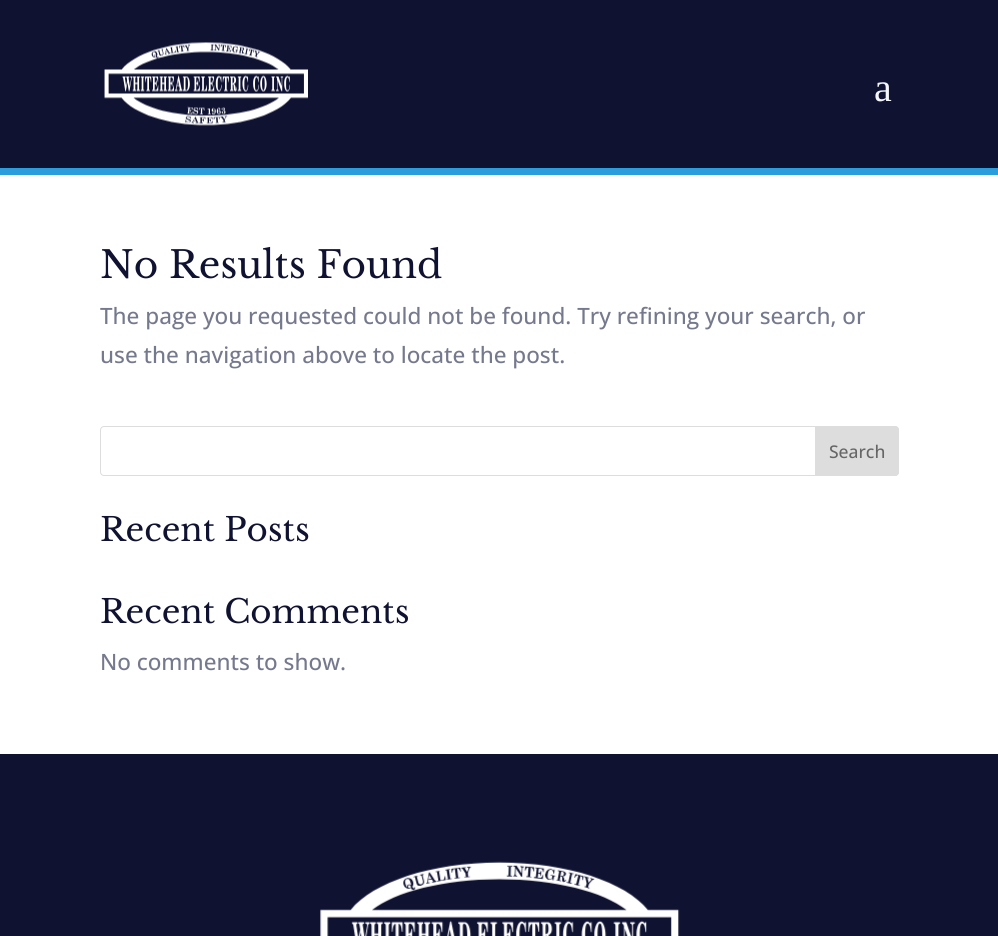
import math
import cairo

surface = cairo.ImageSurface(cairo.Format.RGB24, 998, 936)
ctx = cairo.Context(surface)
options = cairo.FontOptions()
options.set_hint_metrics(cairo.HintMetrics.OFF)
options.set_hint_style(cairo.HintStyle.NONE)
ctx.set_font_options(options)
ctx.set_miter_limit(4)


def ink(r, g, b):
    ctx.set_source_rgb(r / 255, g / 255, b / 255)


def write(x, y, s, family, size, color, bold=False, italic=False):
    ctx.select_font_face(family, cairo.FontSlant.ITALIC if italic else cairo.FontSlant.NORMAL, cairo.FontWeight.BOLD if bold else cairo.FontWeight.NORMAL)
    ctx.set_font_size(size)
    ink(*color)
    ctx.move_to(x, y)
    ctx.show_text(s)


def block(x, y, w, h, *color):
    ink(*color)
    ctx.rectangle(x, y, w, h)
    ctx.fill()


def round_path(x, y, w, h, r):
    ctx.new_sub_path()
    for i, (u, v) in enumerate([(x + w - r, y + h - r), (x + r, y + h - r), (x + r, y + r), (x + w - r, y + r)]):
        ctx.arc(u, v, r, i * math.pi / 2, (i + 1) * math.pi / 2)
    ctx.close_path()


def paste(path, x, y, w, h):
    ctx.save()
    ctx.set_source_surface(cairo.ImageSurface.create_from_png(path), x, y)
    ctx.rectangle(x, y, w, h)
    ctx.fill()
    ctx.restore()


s1 = dict(family="Liberation Serif", size=40, color=(244, 246, 252))
s2 = dict(family="Libre Baskerville", size=37.5, color=(15, 19, 49))
s3 = dict(family="Open Sans Medium", size=22.5, color=(117, 121, 141))
s4 = dict(family="Open Sans Medium", size=17.5, color=(102, 102, 102))
s5 = dict(family="Libre Baskerville", size=32.5, color=(15, 19, 49))

ink(255, 255, 255)
ctx.paint()
block(0, 0, 998, 168, 15, 19, 49)
block(0, 168, 998, 7, 43, 156, 220)
paste("pic1.png", 104, 42, 204, 84)
write(874, 101, "a", **s1)
write(100, 278, "No Results Found", **s2)
write(100, 324, "The page you requested could not be found. Try refining your search, or", **s3)
write(100, 363, "use the navigation above to locate the post.", **s3)
round_path(100.5, 426.5, 798, 49, 3.5)
ink(221, 221, 221)
ctx.set_line_width(1)
ctx.stroke()
ctx.new_path()
ctx.move_to(815.5, 426.5)
ctx.line_to(895, 426.5)
ctx.curve_to(897, 426.5, 898.5, 428, 898.5, 430)
ctx.line_to(898.5, 472)
ctx.curve_to(898.5, 474, 897, 475.5, 895, 475.5)
ctx.line_to(815.5, 475.5)
ctx.close_path()
ctx.fill_preserve()
ctx.stroke()
write(829, 458, "Search", **s4)
write(100, 541, "Recent Posts", **s5)
write(100, 623, "Recent Comments", **s5)
write(100, 670, "No comments to show.", **s3)
block(0, 754, 998, 182, 15, 19, 49)
paste("pic2.png", 320, 861, 360, 75)
surface.write_to_png("screenshot.png")
